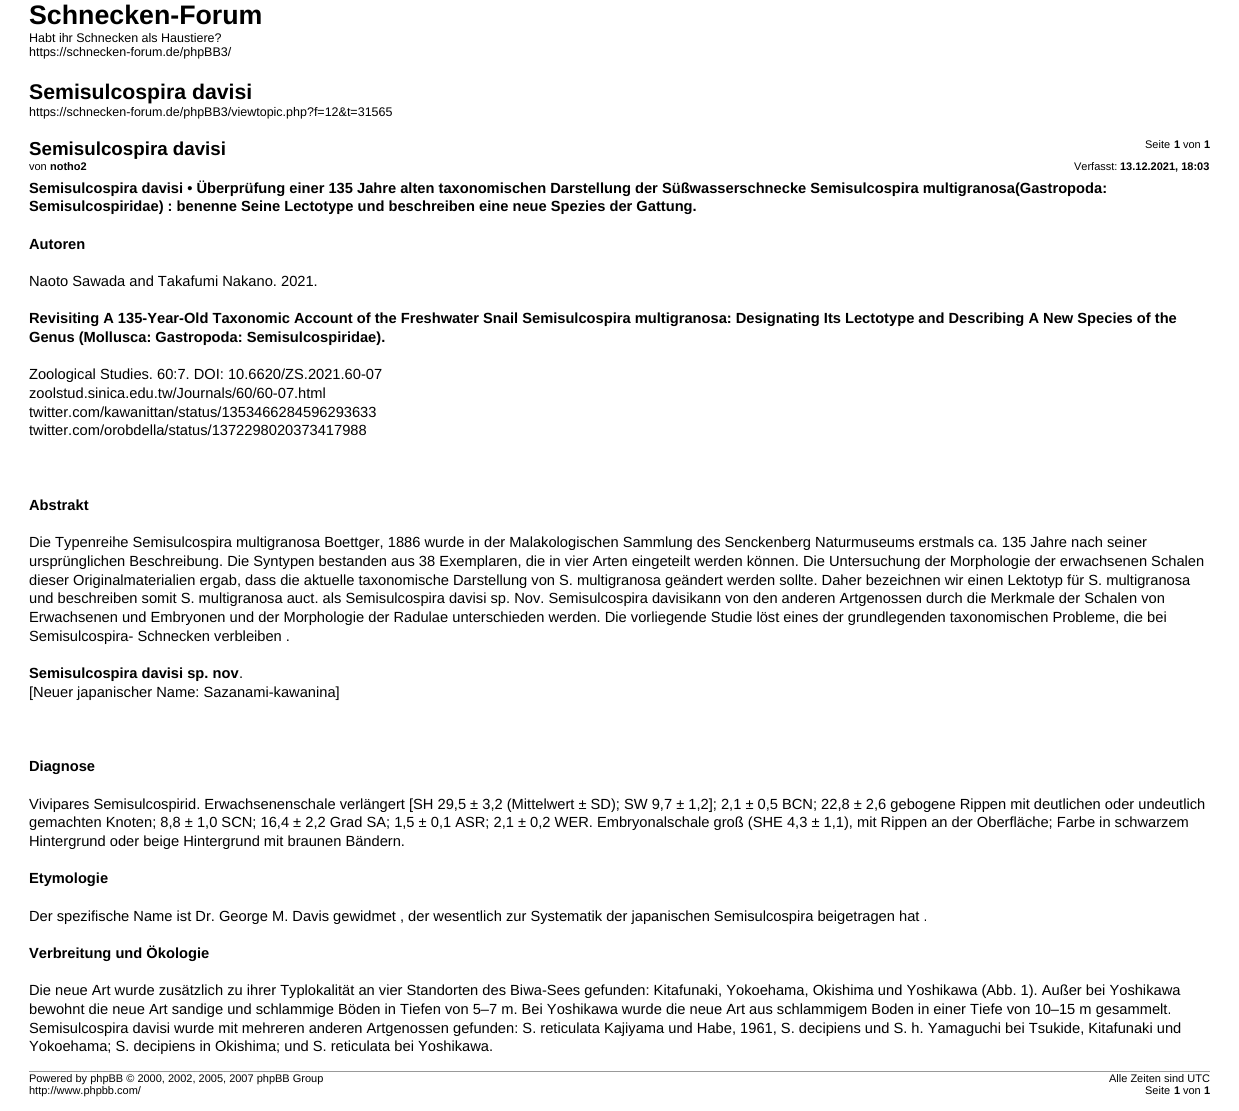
import math
import cairo

surface = cairo.ImageSurface(cairo.Format.RGB24, 1239, 1111)
ctx = cairo.Context(surface)
options = cairo.FontOptions()
options.set_hint_metrics(cairo.HintMetrics.OFF)
options.set_hint_style(cairo.HintStyle.NONE)
ctx.set_font_options(options)
ctx.set_miter_limit(4)


def ink(r, g, b):
    ctx.set_source_rgb(r / 255, g / 255, b / 255)


def write(x, y, s, family, size, color, bold=False, italic=False):
    ctx.select_font_face(family, cairo.FontSlant.ITALIC if italic else cairo.FontSlant.NORMAL, cairo.FontWeight.BOLD if bold else cairo.FontWeight.NORMAL)
    ctx.set_font_size(size)
    ink(*color)
    ctx.move_to(x, y)
    ctx.show_text(s)


def block(x, y, w, h, *color):
    ink(*color)
    ctx.rectangle(x, y, w, h)
    ctx.fill()


s1 = dict(family="Liberation Sans", size=26.75, color=(0, 0, 0), bold=True)
s2 = dict(family="Liberation Sans", size=12.5, color=(0, 0, 0))
s3 = dict(family="Liberation Sans", size=21.25, color=(0, 0, 0), bold=True)
s4 = dict(family="Liberation Sans", size=11, color=(0, 0, 0))
s5 = dict(family="Liberation Sans", size=11, color=(0, 0, 0), bold=True)
s6 = dict(family="Liberation Sans", size=18.75, color=(0, 0, 0), bold=True)
s7 = dict(family="Liberation Sans", size=14.67, color=(0, 0, 0), bold=True)
s8 = dict(family="Liberation Sans", size=14.67, color=(0, 0, 0))

ink(255, 255, 255)
ctx.paint()
write(29, 24, "Schnecken-Forum", **s1)
write(29, 42, "Habt ihr Schnecken als Haustiere?", **s2)
write(29, 56, "https://schnecken-forum.de/phpBB3/", **s2)
write(29, 99, "Semisulcospira davisi", **s3)
write(29, 116, "https://schnecken-forum.de/phpBB3/viewtopic.php?f=12&t=31565", **s2)
write(1145, 148, "Seite", **s4)
write(1174, 148, "1", **s5)
write(1183, 148, "von", **s4)
write(1204, 148, "1", **s5)
write(29, 155, "Semisulcospira davisi", **s6)
write(29, 170, "von", **s4)
write(50, 170, "notho2", **s5)
write(1074, 170, "Verfasst:", **s4)
write(1120, 170, "13.12.2021, 18:03", **s5)
write(29, 193, "Semisulcospira davisi • Überprüfung einer 135 Jahre alten taxonomischen Darstellung der Süßwasserschnecke Semisulcospira multigranosa(Gastropoda:", **s7)
write(29, 211, "Semisulcospiridae) : benenne Seine Lectotype und beschreiben eine neue Spezies der Gattung.", **s7)
write(29, 249, "Autoren", **s7)
write(29, 286, "Naoto Sawada and Takafumi Nakano. 2021.", **s8)
write(29, 323, "Revisiting A 135-Year-Old Taxonomic Account of the Freshwater Snail Semisulcospira multigranosa: Designating Its Lectotype and Describing A New Species of the", **s7)
write(29, 342, "Genus (Mollusca: Gastropoda: Semisulcospiridae).", **s7)
write(29, 379, "Zoological Studies. 60:7. DOI: 10.6620/ZS.2021.60-07", **s8)
write(29, 398, "zoolstud.sinica.edu.tw/Journals/60/60-07.html", **s8)
write(29, 417, "twitter.com/kawanittan/status/1353466284596293633", **s8)
write(29, 435, "twitter.com/orobdella/status/1372298020373417988", **s8)
write(29, 510, "Abstrakt", **s7)
write(29, 547, "Die Typenreihe Semisulcospira multigranosa Boettger, 1886 wurde in der Malakologischen Sammlung des Senckenberg Naturmuseums erstmals ca. 135 Jahre nach seiner", **s8)
write(29, 566, "ursprünglichen Beschreibung. Die Syntypen bestanden aus 38 Exemplaren, die in vier Arten eingeteilt werden können. Die Untersuchung der Morphologie der erwachsenen Schalen", **s8)
write(29, 585, "dieser Originalmaterialien ergab, dass die aktuelle taxonomische Darstellung von S. multigranosa geändert werden sollte. Daher bezeichnen wir einen Lektotyp für S. multigranosa", **s8)
write(29, 603, "und beschreiben somit S. multigranosa auct. als Semisulcospira davisi sp. Nov. Semisulcospira davisikann von den anderen Artgenossen durch die Merkmale der Schalen von", **s8)
write(29, 622, "Erwachsenen und Embryonen und der Morphologie der Radulae unterschieden werden. Die vorliegende Studie löst eines der grundlegenden taxonomischen Probleme, die bei", **s8)
write(29, 641, "Semisulcospira- Schnecken verbleiben .", **s8)
write(29, 678, "Semisulcospira davisi sp. nov", **s7)
write(239, 678, ".", **s8)
write(29, 697, "[Neuer japanischer Name: Sazanami-kawanina]", **s8)
write(29, 771, "Diagnose", **s7)
write(29, 809, "Vivipares Semisulcospirid. Erwachsenenschale verlängert [SH 29,5 ± 3,2 (Mittelwert ± SD); SW 9,7 ± 1,2]; 2,1 ± 0,5 BCN; 22,8 ± 2,6 gebogene Rippen mit deutlichen oder undeutlich", **s8)
write(29, 827, "gemachten Knoten; 8,8 ± 1,0 SCN; 16,4 ± 2,2 Grad SA; 1,5 ± 0,1 ASR; 2,1 ± 0,2 WER. Embryonalschale groß (SHE 4,3 ± 1,1), mit Rippen an der Oberfläche; Farbe in schwarzem", **s8)
write(29, 846, "Hintergrund oder beige Hintergrund mit braunen Bändern.", **s8)
write(29, 883, "Etymologie", **s7)
write(29, 921, "Der spezifische Name ist Dr. George M. Davis gewidmet , der wesentlich zur Systematik der japanischen Semisulcospira beigetragen hat .", **s8)
write(29, 958, "Verbreitung und Ökologie", **s7)
write(29, 995, "Die neue Art wurde zusätzlich zu ihrer Typlokalität an vier Standorten des Biwa-Sees gefunden: Kitafunaki, Yokoehama, Okishima und Yoshikawa (Abb. 1). Außer bei Yoshikawa", **s8)
write(29, 1014, "bewohnt die neue Art sandige und schlammige Böden in Tiefen von 5–7 m. Bei Yoshikawa wurde die neue Art aus schlammigem Boden in einer Tiefe von 10–15 m gesammelt.", **s8)
write(29, 1033, "Semisulcospira davisi wurde mit mehreren anderen Artgenossen gefunden: S. reticulata Kajiyama und Habe, 1961, S. decipiens und S. h. Yamaguchi bei Tsukide, Kitafunaki und", **s8)
write(29, 1051, "Yokoehama; S. decipiens in Okishima; und S. reticulata bei Yoshikawa.", **s8)
block(29, 1071, 1181, 1, 153, 153, 153)
write(29, 1082, "Powered by phpBB © 2000, 2002, 2005, 2007 phpBB Group", **s4)
write(29, 1094, "http://www.phpbb.com/", **s4)
write(1109, 1082, "Alle Zeiten sind UTC", **s4)
write(1145, 1094, "Seite", **s4)
write(1174, 1094, "1", **s5)
write(1183, 1094, "von", **s4)
write(1204, 1094, "1", **s5)
surface.write_to_png("screenshot.png")
